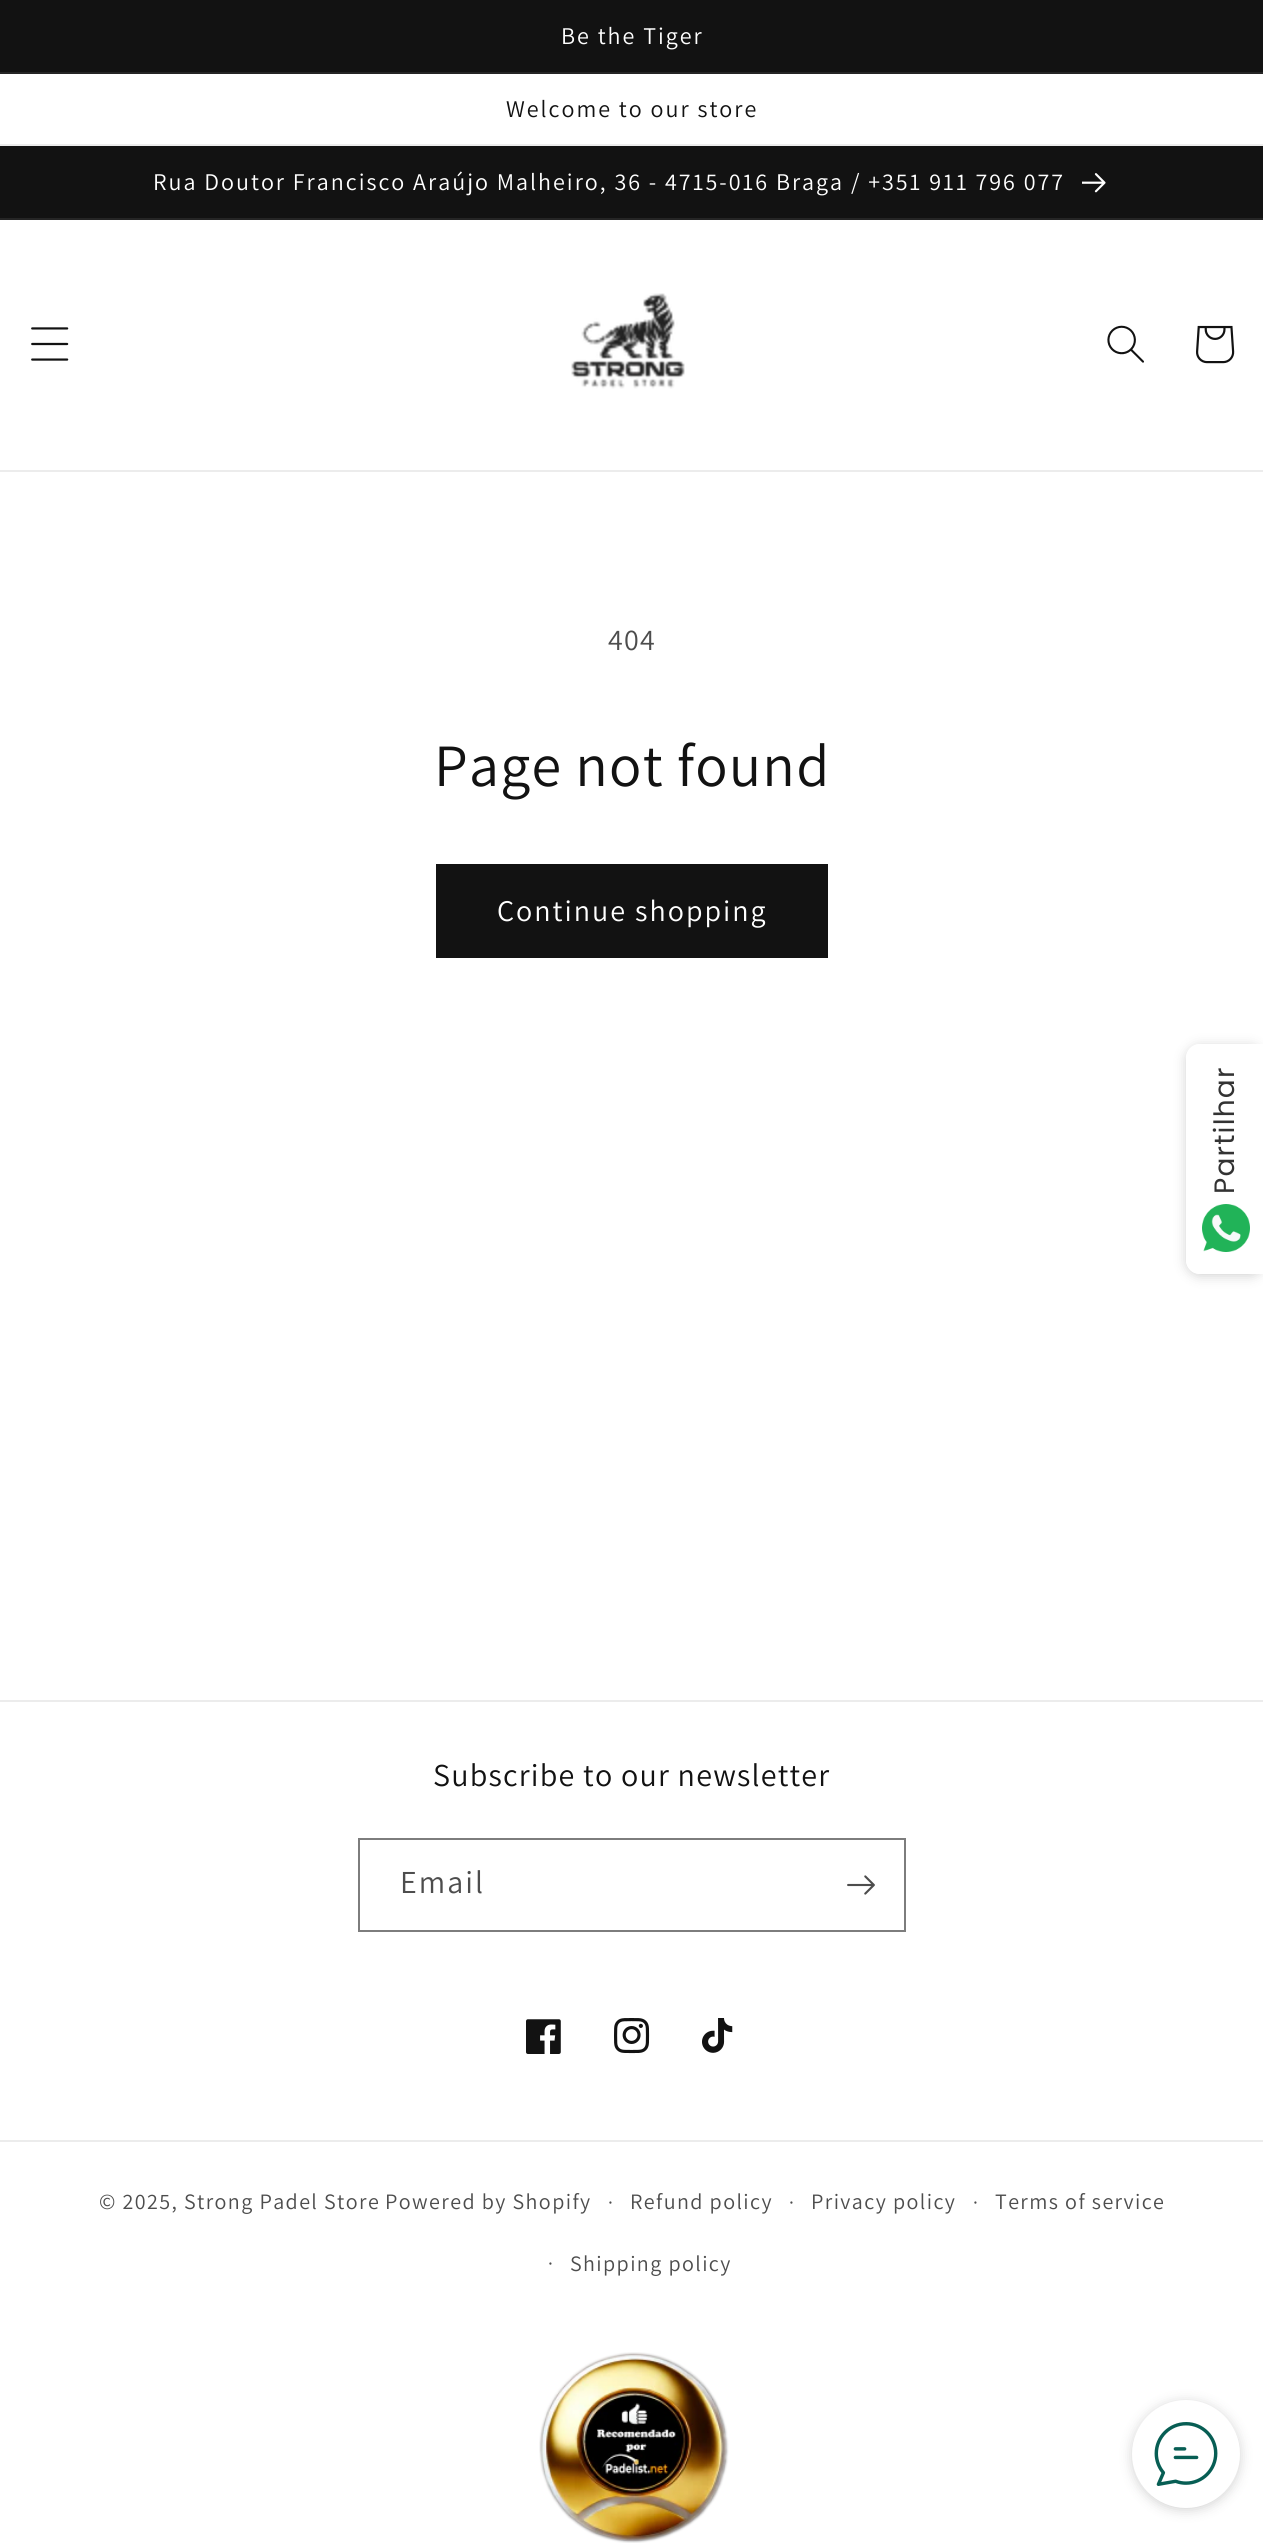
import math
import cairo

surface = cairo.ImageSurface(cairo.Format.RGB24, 1263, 2547)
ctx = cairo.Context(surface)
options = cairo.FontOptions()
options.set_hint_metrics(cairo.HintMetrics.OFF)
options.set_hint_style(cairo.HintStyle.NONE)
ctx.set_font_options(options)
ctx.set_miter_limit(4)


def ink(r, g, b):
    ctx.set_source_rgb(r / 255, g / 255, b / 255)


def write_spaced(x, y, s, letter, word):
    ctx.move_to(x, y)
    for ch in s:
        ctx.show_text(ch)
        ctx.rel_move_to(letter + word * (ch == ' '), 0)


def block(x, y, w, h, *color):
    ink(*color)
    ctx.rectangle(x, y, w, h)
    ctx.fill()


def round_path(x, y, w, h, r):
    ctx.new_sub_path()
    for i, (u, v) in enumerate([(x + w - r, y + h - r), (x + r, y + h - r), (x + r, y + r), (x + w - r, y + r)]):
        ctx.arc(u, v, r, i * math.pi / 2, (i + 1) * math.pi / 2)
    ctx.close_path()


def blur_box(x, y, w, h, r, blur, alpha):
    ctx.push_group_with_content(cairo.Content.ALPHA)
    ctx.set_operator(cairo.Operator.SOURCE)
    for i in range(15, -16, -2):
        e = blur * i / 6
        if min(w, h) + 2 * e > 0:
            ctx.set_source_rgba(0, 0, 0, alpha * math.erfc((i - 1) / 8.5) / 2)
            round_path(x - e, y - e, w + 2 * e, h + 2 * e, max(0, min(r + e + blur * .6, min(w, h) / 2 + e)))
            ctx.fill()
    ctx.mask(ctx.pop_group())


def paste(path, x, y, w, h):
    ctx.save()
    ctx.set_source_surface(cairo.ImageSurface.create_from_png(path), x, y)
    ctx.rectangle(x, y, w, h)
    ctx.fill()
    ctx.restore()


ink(255, 255, 255)
ctx.paint()
block(0, 0, 1263, 72, 18, 18, 18)
block(0, 72, 1263, 2, 37, 37, 37)
ctx.select_font_face("Assistant")
ctx.set_font_size(24)
ink(255, 255, 255)
write_spaced(561, 44, "Be the Tiger", 2, 0)
block(0, 144, 1263, 2, 236, 236, 236)
ink(18, 18, 18)
write_spaced(506, 117, "Welcome to our store", 2, 0)
block(0, 146, 1263, 72, 18, 18, 18)
block(0, 218, 1263, 2, 37, 37, 37)
ink(255, 255, 255)
write_spaced(153, 190, "Rua Doutor Francisco Araújo Malheiro, 36 - 4715-016 Braga / +351 911 796 077", 2, 0)
paste("pic1.png", 1082, 173, 24, 20)
block(0, 470, 1263, 2, 236, 236, 236)
paste("pic2.png", 31, 327, 38, 34)
paste("pic3.png", 571, 293, 114, 96)
paste("pic4.png", 1107, 325, 37, 38)
paste("pic5.png", 1196, 325, 39, 39)
ctx.set_font_size(30)
ink(77, 77, 77)
write_spaced(608, 650, "404", 1.2, 0)
ctx.set_font_size(60)
ink(18, 18, 18)
write_spaced(434, 786, "Page not found", 1.2, 0)
block(436, 864, 392, 94, 18, 18, 18)
ctx.set_font_size(30)
ink(255, 255, 255)
write_spaced(497, 921, "Continue shopping", 2, 0)
ink(27, 27, 27)
blur_box(1186, 1046, 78, 230, 14, 6, 0.2)
ink(255, 255, 255)
ctx.new_path()
ctx.move_to(1200, 1044)
ctx.line_to(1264, 1044)
ctx.line_to(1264, 1274)
ctx.line_to(1200, 1274)
ctx.curve_to(1192.5, 1274, 1186, 1267.5, 1186, 1260)
ctx.line_to(1186, 1058)
ctx.curve_to(1186, 1050.5, 1192.5, 1044, 1200, 1044)
ctx.close_path()
ctx.fill()
ctx.set_fill_rule(cairo.FillRule.EVEN_ODD)
ctx.new_path()
ctx.move_to(1200, 1044)
ctx.line_to(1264, 1044)
ctx.line_to(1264, 1274)
ctx.line_to(1200, 1274)
ctx.curve_to(1192, 1274, 1186, 1268, 1186, 1260)
ctx.line_to(1186, 1058)
ctx.curve_to(1186, 1050, 1192, 1044, 1200, 1044)
ctx.close_path()
ctx.move_to(1200, 1046)
ctx.line_to(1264, 1046)
ctx.line_to(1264, 1272)
ctx.line_to(1200, 1272)
ctx.curve_to(1193, 1272, 1188, 1267, 1188, 1260)
ctx.line_to(1188, 1058)
ctx.curve_to(1188, 1051, 1193, 1046, 1200, 1046)
ctx.close_path()
ctx.fill()
ctx.select_font_face("Poppins")
ctx.set_font_size(28)
ink(51, 51, 51)
ctx.save()
ctx.translate(1234, 1194)
ctx.rotate(-90 * math.pi / 180)
write_spaced(0, 0, "Partilhar", 1.2, 0)
ctx.restore()
paste("pic6.png", 1202, 1204, 48, 48)
ink(27, 27, 27)
blur_box(1132, 2402, 108, 108, 54, 6, 0.2)
ink(255, 255, 255)
ctx.arc(1186, 2454, 53, 0, 2 * math.pi)
ctx.fill_preserve()
ctx.stroke()
paste("pic7.png", 1154, 2422, 64, 64)
block(0, 1700, 1263, 2, 236, 236, 236)
ctx.select_font_face("Assistant")
ctx.set_font_size(32)
ink(18, 18, 18)
write_spaced(433, 1786, "Subscribe to our newsletter", 1.2, 0)
ctx.rectangle(359, 1839, 546, 92)
ink(125, 125, 125)
ctx.stroke()
ink(77, 77, 77)
write_spaced(400, 1893, "Email", 2, 0)
paste("pic8.png", 847, 1875, 28, 20)
paste("pic9.png", 526, 2019, 35, 35)
paste("pic10.png", 614, 2018, 36, 36)
paste("pic11.png", 702, 2018, 31, 35)
block(0, 2140, 1263, 2, 236, 236, 236)
ctx.set_font_size(22)
ink(77, 77, 77)
write_spaced(99, 2209, "© 2025, Strong Padel Store", 1.4, 0)
write_spaced(385, 2209, "Powered by Shopify", 1.4, 0)
ctx.set_font_size(20)
write_spaced(608, 2209, "·", 1.4, 0)
ctx.set_font_size(22)
write_spaced(630, 2209, "Refund policy", 1.4, 0)
ctx.set_font_size(20)
write_spaced(789, 2209, "·", 1.4, 0)
ctx.set_font_size(22)
write_spaced(811, 2209, "Privacy policy", 1.4, 0)
ctx.set_font_size(20)
write_spaced(973, 2209, "·", 1.4, 0)
ctx.set_font_size(22)
write_spaced(995, 2209, "Terms of service", 1.4, 0)
ctx.set_font_size(20)
write_spaced(548, 2270, "·", 1.4, 0)
ctx.set_font_size(22)
write_spaced(570, 2271, "Shipping policy", 1.4, 0)
paste("pic12.png", 539, 2352, 190, 191)
surface.write_to_png("screenshot.png")
